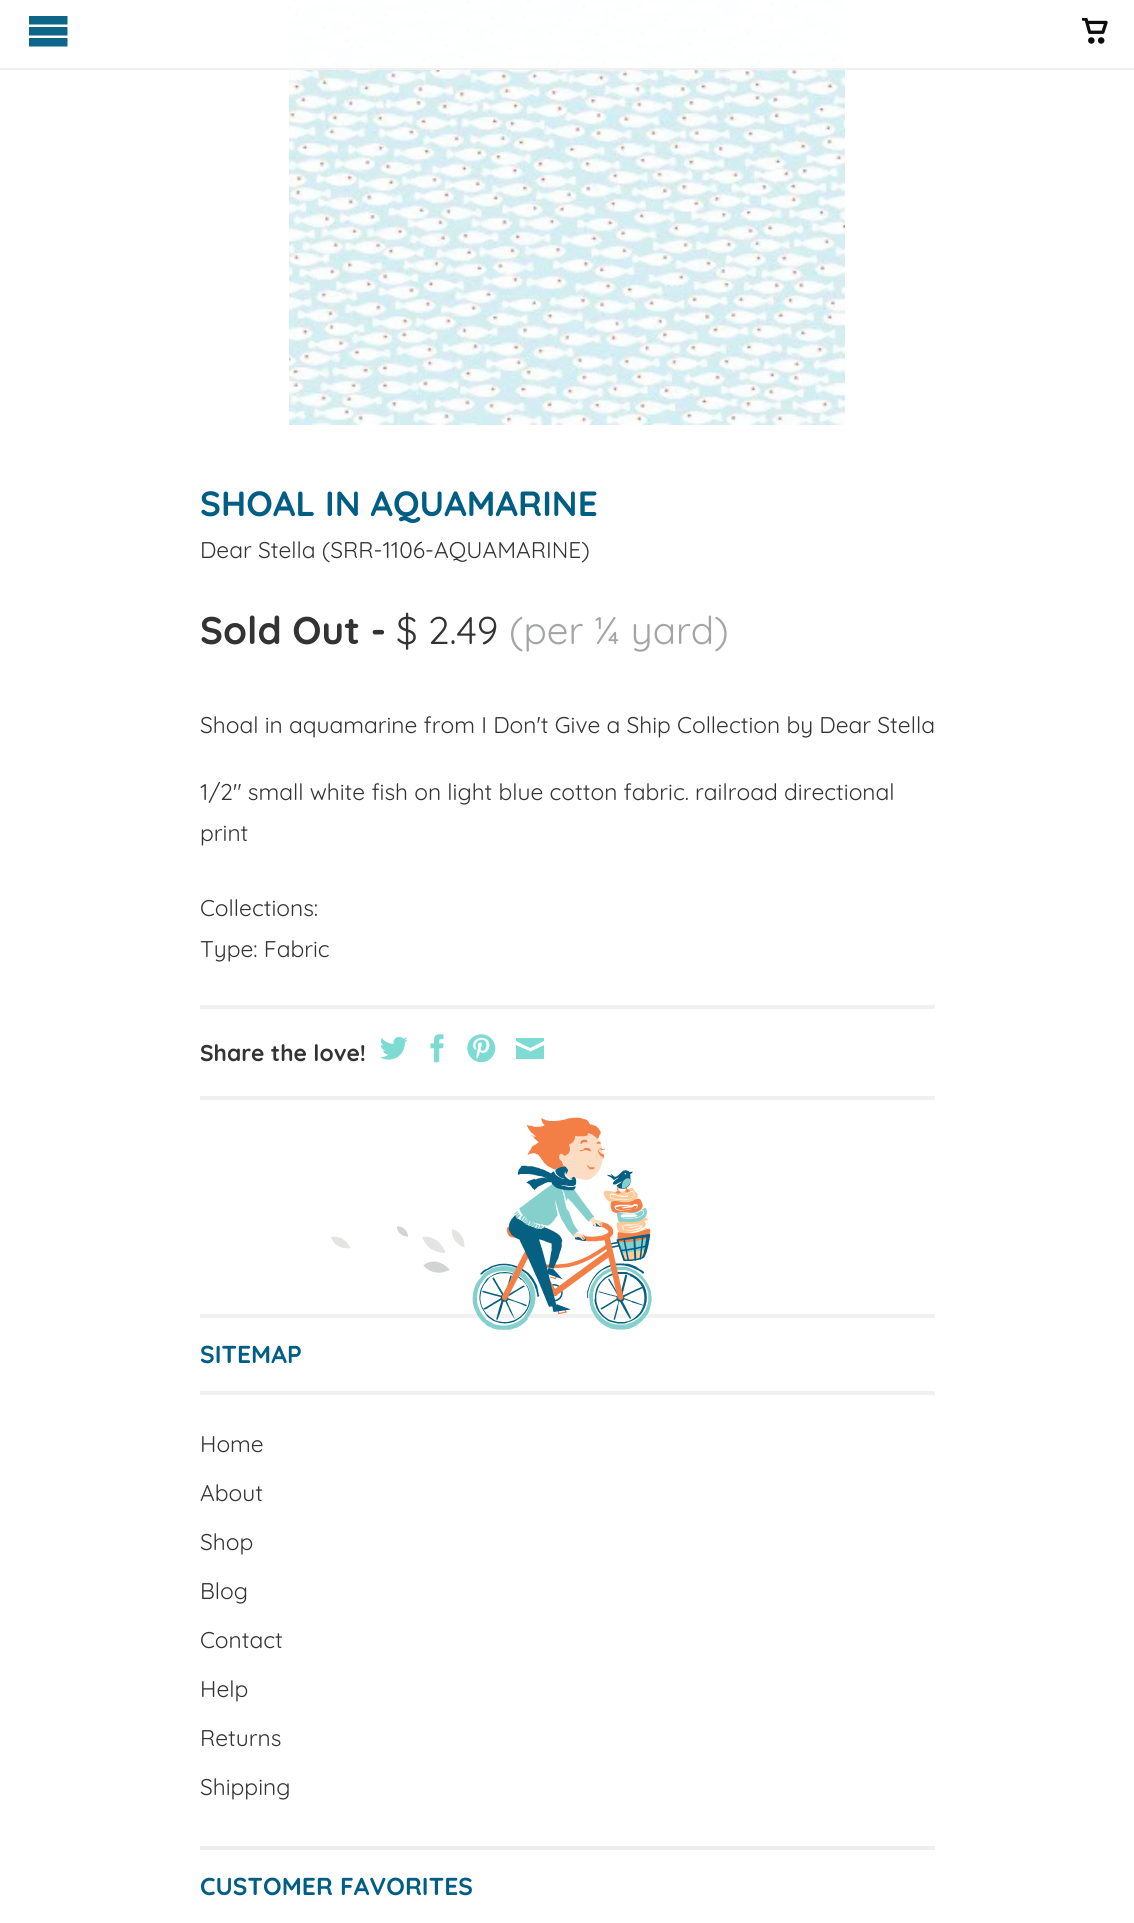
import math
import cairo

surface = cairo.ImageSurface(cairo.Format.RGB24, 1134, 1923)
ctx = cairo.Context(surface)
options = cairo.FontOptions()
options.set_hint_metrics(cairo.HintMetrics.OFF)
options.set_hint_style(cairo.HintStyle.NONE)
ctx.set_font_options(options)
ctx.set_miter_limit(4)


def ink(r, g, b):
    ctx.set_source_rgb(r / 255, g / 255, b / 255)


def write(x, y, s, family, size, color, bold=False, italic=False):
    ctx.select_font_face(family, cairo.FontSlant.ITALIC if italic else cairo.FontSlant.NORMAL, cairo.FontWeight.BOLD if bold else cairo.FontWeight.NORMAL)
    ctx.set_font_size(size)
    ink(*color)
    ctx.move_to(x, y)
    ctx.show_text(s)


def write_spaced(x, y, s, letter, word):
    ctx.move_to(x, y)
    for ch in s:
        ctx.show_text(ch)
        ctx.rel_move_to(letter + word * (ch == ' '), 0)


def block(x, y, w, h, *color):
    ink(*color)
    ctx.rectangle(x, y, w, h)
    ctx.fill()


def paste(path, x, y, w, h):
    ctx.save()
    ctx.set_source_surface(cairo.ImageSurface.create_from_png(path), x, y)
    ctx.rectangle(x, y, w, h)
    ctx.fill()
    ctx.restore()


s1 = dict(family="Quicksand", size=22.75, color=(51, 51, 51))
s2 = dict(family="Quicksand", size=38.5, color=(51, 51, 51), bold=True)
s3 = dict(family="Quicksand", size=38.5, color=(51, 51, 51))
s4 = dict(family="Quicksand", size=38.5, color=(163, 164, 164))
s5 = dict(family="Quicksand", size=22.75, color=(51, 51, 51), bold=True)

ink(255, 255, 255)
ctx.paint()
paste("pic2.png", 289, 0, 556, 425)
ctx.set_source_rgba(1, 1, 1, 0.95)
ctx.rectangle(289, 0, 556, 70)
ctx.fill()
ctx.set_source_rgba(0.941, 0.941, 0.941, 0.95)
ctx.rectangle(0, 68, 1134, 2)
ctx.fill()
ink(13, 101, 137)
ctx.new_path()
ctx.move_to(29, 16)
ctx.line_to(29, 24.5)
ctx.line_to(67.5, 24.5)
ctx.line_to(67.5, 16)
ctx.close_path()
ctx.move_to(29, 27)
ctx.line_to(29, 35.5)
ctx.line_to(67.5, 35.5)
ctx.line_to(67.5, 27)
ctx.close_path()
ctx.move_to(29, 38)
ctx.line_to(29, 46.5)
ctx.line_to(67.5, 46.5)
ctx.line_to(67.5, 38)
ctx.close_path()
ctx.fill()
paste("pic1.png", 1082, 18, 26, 26)
ctx.select_font_face("Quicksand", cairo.FontSlant.NORMAL, cairo.FontWeight.BOLD)
ctx.set_font_size(35)
ink(0, 93, 131)
write_spaced(200, 516, "SHOAL IN AQUAMARINE", 0.1, 0)
write(200, 558, "Dear Stella (SRR-1106-AQUAMARINE)", **s1)
write(200, 644, "Sold Out -", **s2)
write(396, 644, "$ 2.49", **s3)
write(509, 644, "(per ¼ yard)", **s4)
write(200, 733, "Shoal in aquamarine from I Don't Give a Ship Collection by Dear Stella", **s1)
write(200, 800, "1/2\" small white fish on light blue cotton fabric. railroad directional", **s1)
write(200, 841, "print", **s1)
write(200, 916, "Collections:", **s1)
write(200, 957, "Type: Fabric", **s1)
block(200, 1005, 735, 4, 240, 240, 240)
block(200, 1096, 735, 4, 240, 240, 240)
write(200, 1061, "Share the love!", **s5)
paste("pic3.png", 380, 1036, 28, 24)
paste("pic4.png", 430, 1034, 14, 29)
paste("pic5.png", 467, 1034, 29, 29)
ink(125, 219, 212)
ctx.new_path()
ctx.move_to(530, 1048)
ctx.line_to(516, 1041)
ctx.line_to(516, 1038)
ctx.line_to(544, 1038)
ctx.line_to(544, 1041)
ctx.close_path()
ctx.move_to(530.5, 1051.5)
ctx.line_to(544, 1045)
ctx.line_to(544, 1059)
ctx.line_to(516, 1059)
ctx.line_to(516, 1045)
ctx.close_path()
ctx.fill()
block(200, 1314, 735, 4, 240, 240, 240)
paste("pic6.png", 331, 1117, 321, 213)
block(200, 1391, 735, 4, 240, 240, 240)
ctx.set_font_size(24.5)
ink(0, 93, 131)
write_spaced(200, 1363, "SITEMAP", 0.1, 0)
write(200, 1452, "Home", **s1)
write(200, 1501, "About", **s1)
write(200, 1550, "Shop", **s1)
write(200, 1599, "Blog", **s1)
write(200, 1648, "Contact", **s1)
write(200, 1697, "Help", **s1)
write(200, 1746, "Returns", **s1)
write(200, 1795, "Shipping", **s1)
block(200, 1846, 735, 4, 240, 240, 240)
ctx.select_font_face("Quicksand", cairo.FontSlant.NORMAL, cairo.FontWeight.BOLD)
ctx.set_font_size(24.5)
ink(0, 93, 131)
write_spaced(200, 1895, "CUSTOMER FAVORITES", 0.1, 0)
surface.write_to_png("screenshot.png")
